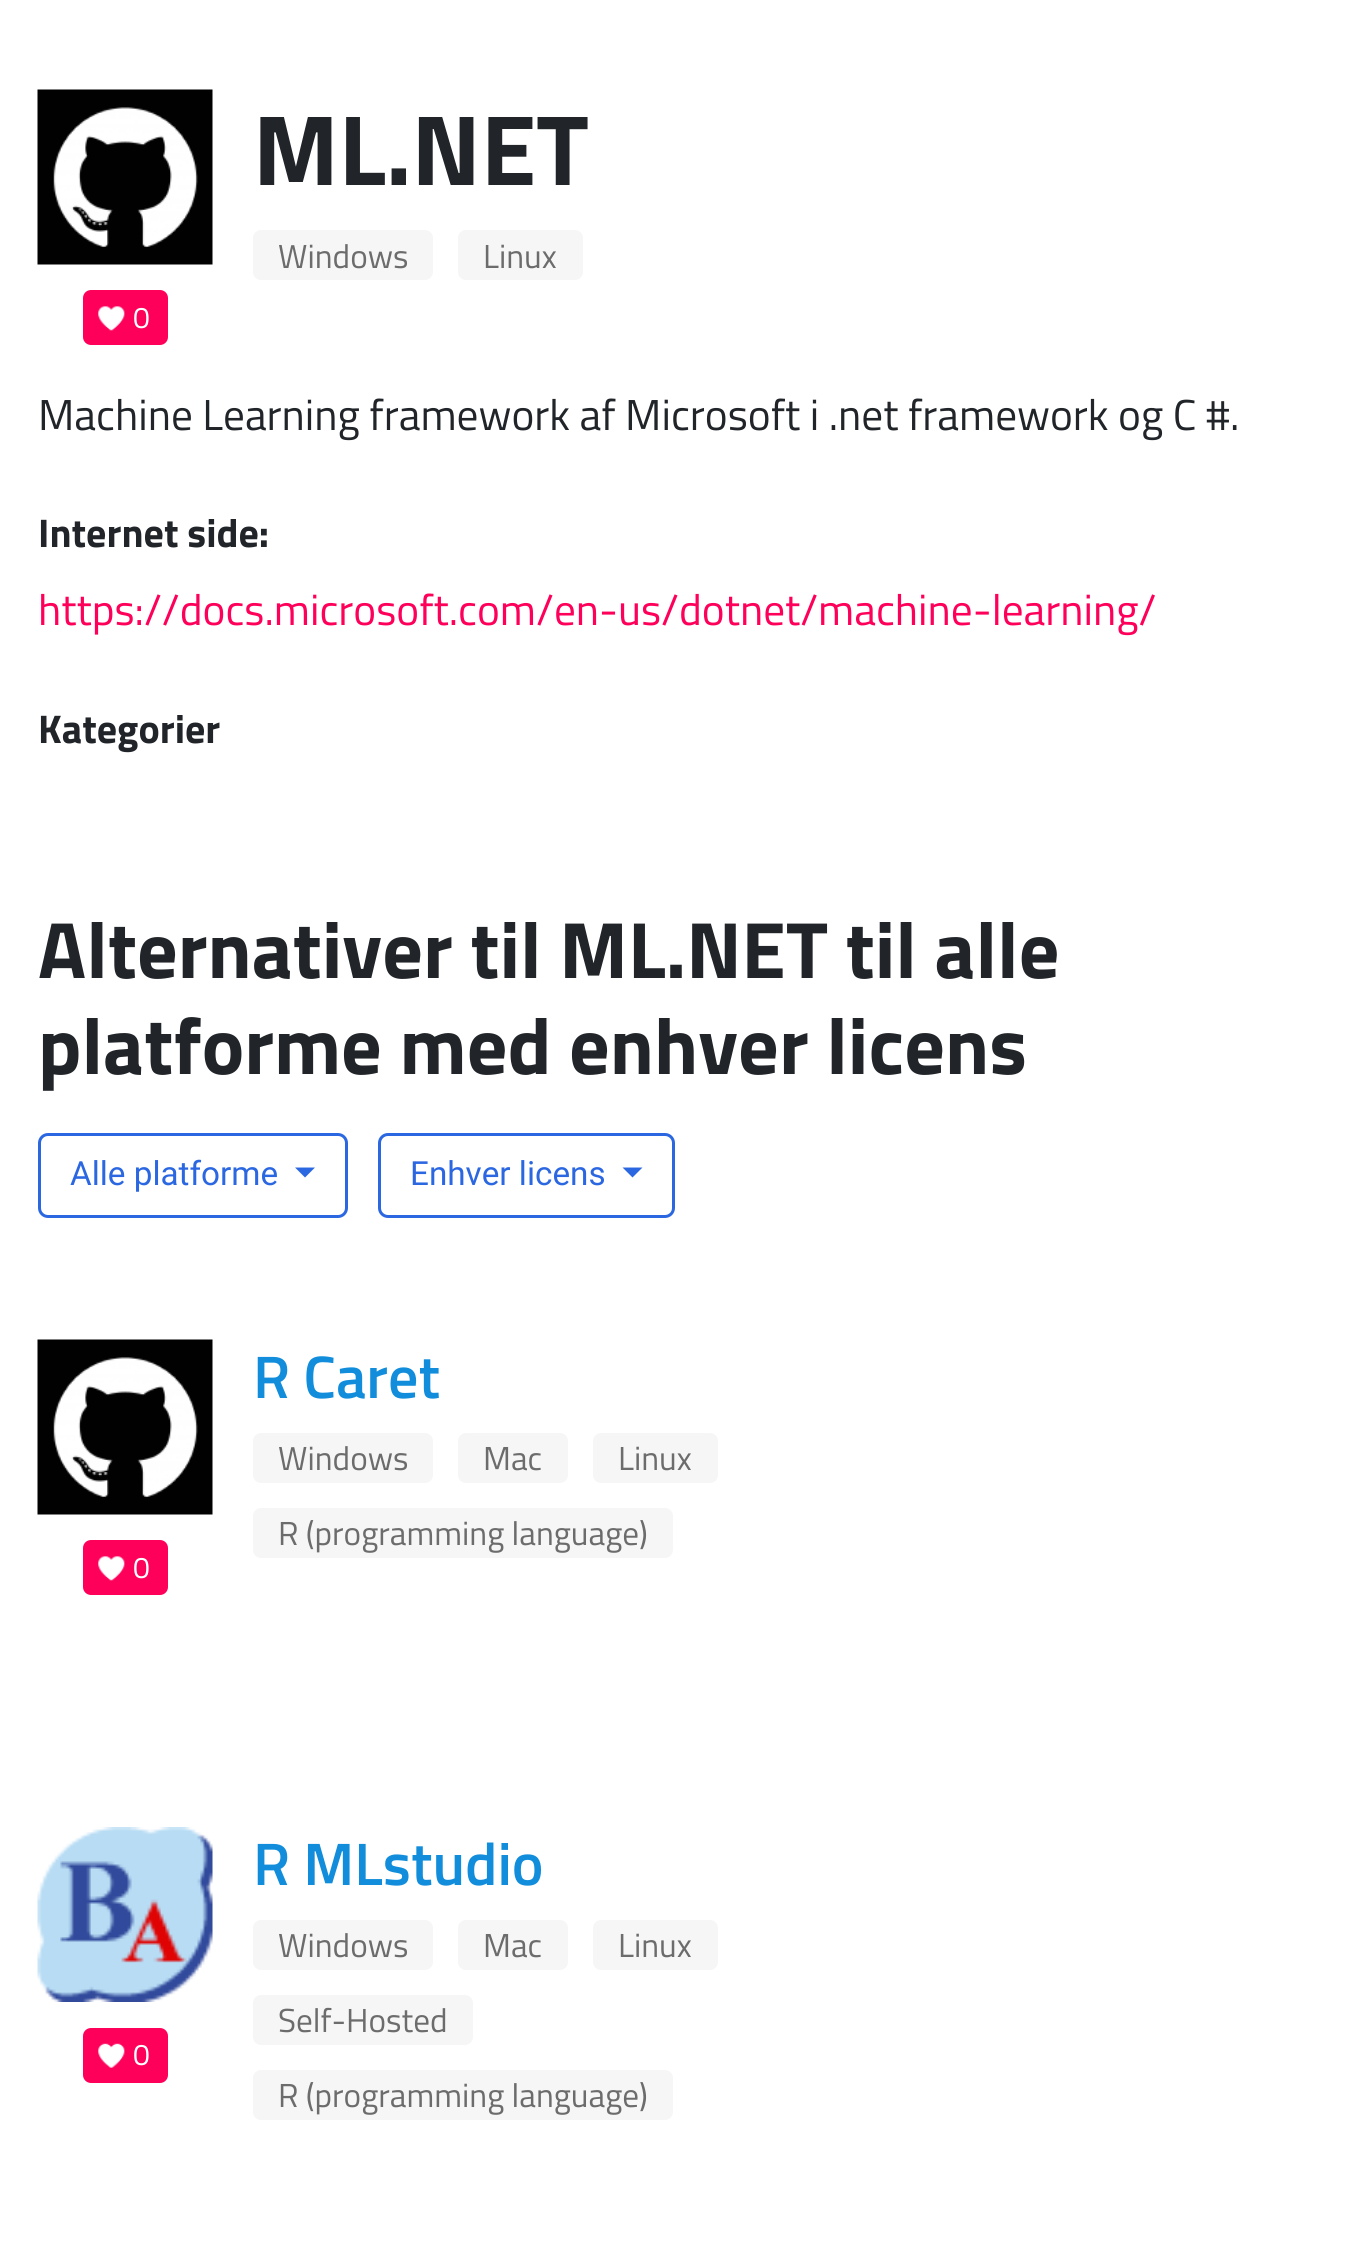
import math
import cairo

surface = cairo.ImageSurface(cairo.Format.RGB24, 1349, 2253)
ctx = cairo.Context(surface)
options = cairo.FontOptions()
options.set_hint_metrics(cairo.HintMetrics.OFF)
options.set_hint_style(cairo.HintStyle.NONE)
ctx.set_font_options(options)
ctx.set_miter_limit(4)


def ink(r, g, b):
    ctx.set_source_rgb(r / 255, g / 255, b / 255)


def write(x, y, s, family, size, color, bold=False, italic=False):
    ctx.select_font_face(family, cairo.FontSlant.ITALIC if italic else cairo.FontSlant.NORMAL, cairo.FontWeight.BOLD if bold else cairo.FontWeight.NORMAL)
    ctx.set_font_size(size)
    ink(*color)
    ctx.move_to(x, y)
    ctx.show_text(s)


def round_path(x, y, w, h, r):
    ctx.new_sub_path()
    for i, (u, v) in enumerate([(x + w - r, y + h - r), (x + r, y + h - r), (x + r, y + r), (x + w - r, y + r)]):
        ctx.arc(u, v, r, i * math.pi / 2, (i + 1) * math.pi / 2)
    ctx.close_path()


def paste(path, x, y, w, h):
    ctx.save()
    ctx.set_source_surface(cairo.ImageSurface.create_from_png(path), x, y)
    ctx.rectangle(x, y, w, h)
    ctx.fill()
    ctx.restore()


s1 = dict(family="Titillium Web", size=100, color=(33, 37, 41), bold=True)
s2 = dict(family="Titillium Web", size=33.25, color=(108, 108, 108))
s3 = dict(family="Titillium Web", size=30, color=(255, 255, 255))
s4 = dict(family="Titillium Web", size=43.3, color=(33, 37, 41))
s5 = dict(family="Titillium Web", size=40, color=(33, 37, 41), bold=True)
s6 = dict(family="Titillium Web", size=43.3, color=(254, 0, 90))
s7 = dict(family="Titillium Web", size=80, color=(33, 37, 41), bold=True)
s8 = dict(family="Roboto", size=33.25, color=(43, 103, 225))
s9 = dict(family="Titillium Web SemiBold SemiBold", size=60, color=(17, 141, 219))

ink(255, 255, 255)
ctx.paint()
write(253, 185, "ML.NET", **s1)
ink(246, 246, 246)
round_path(253, 230, 180, 50, 8)
ctx.fill()
write(278, 268, "Windows", **s2)
ink(246, 246, 246)
round_path(458, 230, 125, 50, 8)
ctx.fill()
write(483, 268, "Linux", **s2)
paste("pic1.png", 37, 89, 176, 176)
ink(254, 0, 90)
round_path(83, 290, 85, 55, 8)
ctx.fill()
paste("pic2.png", 98, 306, 27, 25)
write(133, 328, "0", **s3)
write(38, 430, "Machine Learning framework af Microsoft i .net framework og C #.", **s4)
write(38, 547, "Internet side:", **s5)
write(38, 625, "https://docs.microsoft.com/en-us/dotnet/machine-learning/", **s6)
write(38, 743, "Kategorier", **s5)
write(38, 978, "Alternativer til ML.NET til alle", **s7)
write(38, 1074, "platforme med enhver licens", **s7)
round_path(39.5, 1134.5, 307, 82, 8.5)
ink(43, 103, 225)
ctx.set_line_width(3)
ctx.stroke()
write(70, 1185, "Alle platforme", **s8)
ctx.new_path()
ctx.move_to(295, 1167.5)
ctx.line_to(315, 1167.5)
ctx.line_to(305, 1177.5)
ctx.close_path()
ctx.fill()
round_path(379.5, 1134.5, 294, 82, 8.5)
ctx.stroke()
write(410, 1185, "Enhver licens", **s8)
ctx.new_path()
ctx.move_to(622.5, 1167.5)
ctx.line_to(642.5, 1167.5)
ctx.line_to(632.5, 1177.5)
ctx.close_path()
ctx.fill()
write(253, 1398, "R Caret", **s9)
ink(246, 246, 246)
round_path(253, 1433, 180, 50, 8)
ctx.fill()
write(278, 1470, "Windows", **s2)
ink(246, 246, 246)
round_path(458, 1433, 110, 50, 8)
ctx.fill()
write(483, 1470, "Mac", **s2)
ink(246, 246, 246)
round_path(593, 1433, 125, 50, 8)
ctx.fill()
write(618, 1470, "Linux", **s2)
ink(246, 246, 246)
round_path(253, 1508, 420, 50, 8)
ctx.fill()
write(278, 1545, "R (programming language)", **s2)
paste("pic1.png", 37, 1339, 176, 176)
ink(254, 0, 90)
round_path(83, 1540, 85, 55, 8)
ctx.fill()
paste("pic2.png", 98, 1556, 27, 25)
write(133, 1578, "0", **s3)
paste("pic3.png", 37, 1827, 176, 175)
ink(254, 0, 90)
round_path(83, 2028, 85, 55, 8)
ctx.fill()
paste("pic4.png", 98, 2043, 27, 25)
write(133, 2065, "0", **s3)
write(253, 1885, "R MLstudio", **s9)
ink(246, 246, 246)
round_path(253, 1920, 180, 50, 8)
ctx.fill()
write(278, 1957, "Windows", **s2)
ink(246, 246, 246)
round_path(458, 1920, 110, 50, 8)
ctx.fill()
write(483, 1957, "Mac", **s2)
ink(246, 246, 246)
round_path(593, 1920, 125, 50, 8)
ctx.fill()
write(618, 1957, "Linux", **s2)
ink(246, 246, 246)
round_path(253, 1995, 220, 50, 8)
ctx.fill()
write(278, 2032, "Self-Hosted", **s2)
ink(246, 246, 246)
round_path(253, 2070, 420, 50, 8)
ctx.fill()
write(278, 2107, "R (programming language)", **s2)
surface.write_to_png("screenshot.png")
